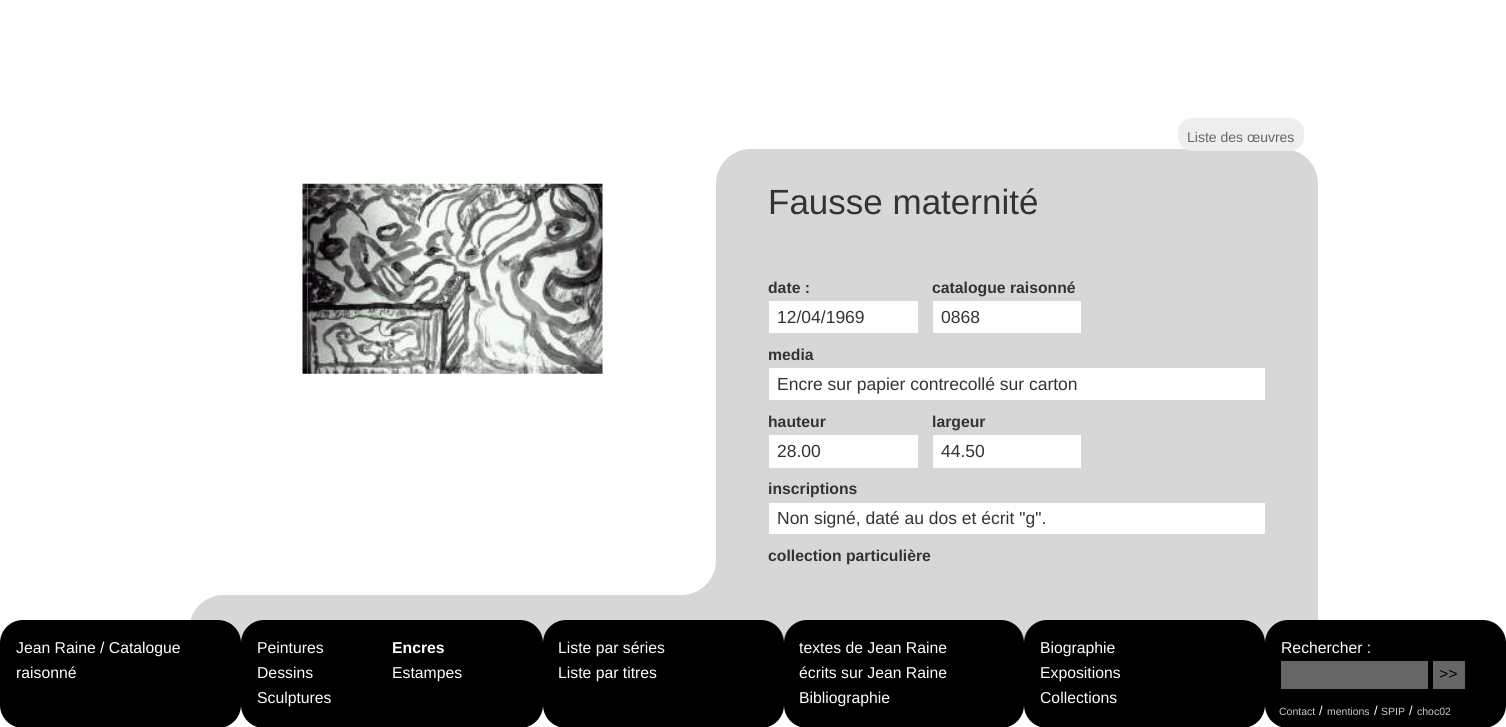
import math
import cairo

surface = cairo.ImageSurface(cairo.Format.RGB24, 1506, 727)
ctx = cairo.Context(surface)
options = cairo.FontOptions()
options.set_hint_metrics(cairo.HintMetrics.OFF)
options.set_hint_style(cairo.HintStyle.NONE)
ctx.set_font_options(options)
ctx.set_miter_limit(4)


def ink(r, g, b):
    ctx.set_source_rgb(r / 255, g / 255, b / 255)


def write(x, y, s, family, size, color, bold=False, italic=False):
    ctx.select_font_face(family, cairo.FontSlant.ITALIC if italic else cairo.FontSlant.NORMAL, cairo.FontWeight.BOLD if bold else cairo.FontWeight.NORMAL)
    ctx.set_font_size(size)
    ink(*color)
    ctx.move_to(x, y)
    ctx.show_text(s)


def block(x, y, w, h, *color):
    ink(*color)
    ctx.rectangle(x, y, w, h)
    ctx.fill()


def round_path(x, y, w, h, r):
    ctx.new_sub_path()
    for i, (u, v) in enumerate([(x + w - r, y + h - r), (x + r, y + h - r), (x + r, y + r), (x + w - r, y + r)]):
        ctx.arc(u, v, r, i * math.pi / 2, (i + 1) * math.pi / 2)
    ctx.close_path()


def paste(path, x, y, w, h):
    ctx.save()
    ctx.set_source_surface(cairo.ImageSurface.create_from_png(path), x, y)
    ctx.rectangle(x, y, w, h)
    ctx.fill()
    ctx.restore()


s1 = dict(family="Liberation Sans", size=14, color=(102, 102, 102))
s2 = dict(family="Liberation Sans", size=35, color=(51, 51, 51))
s3 = dict(family="Liberation Sans", size=15.75, color=(51, 51, 51), bold=True)
s4 = dict(family="Liberation Sans", size=17.5, color=(51, 51, 51))
s5 = dict(family="Liberation Sans", size=15.75, color=(255, 255, 255))
s6 = dict(family="Liberation Sans", size=15.75, color=(255, 255, 255), bold=True)
s7 = dict(family="Liberation Sans", size=15.75, color=(0, 0, 0))
s8 = dict(family="Liberation Sans", size=10.5, color=(204, 204, 204))
s9 = dict(family="Liberation Sans", size=13, color=(255, 255, 255))

ink(255, 255, 255)
ctx.paint()
ink(215, 215, 215)
ctx.new_path()
ctx.move_to(751, 149)
ctx.line_to(1283, 149)
ctx.curve_to(1302.5, 149, 1318, 164.5, 1318, 184)
ctx.line_to(1318, 595)
ctx.line_to(716, 595)
ctx.line_to(716, 184)
ctx.curve_to(716, 164.5, 731.5, 149, 751, 149)
ctx.close_path()
ctx.fill()
ink(238, 238, 238)
round_path(1178, 118, 126, 33, 14)
ctx.fill()
write(1187, 142, "Liste des œuvres", **s1)
paste("pic1.png", 302, 183, 6, 6)
paste("pic2.png", 307, 183, 296, 6)
paste("pic3.png", 302, 188, 6, 186)
paste("pic4.png", 307, 188, 296, 186)
write(768, 214, "Fausse maternité", **s2)
write(768, 293, "date :", **s3)
block(769, 301, 149, 32, 255, 255, 255)
write(777, 323, "12/04/1969", **s4)
write(932, 293, "catalogue raisonné", **s3)
block(933, 301, 148, 32, 255, 255, 255)
write(941, 323, "0868", **s4)
write(768, 360, "media", **s3)
block(769, 368, 496, 32, 255, 255, 255)
write(777, 390, "Encre sur papier contrecollé sur carton", **s4)
write(768, 427, "hauteur", **s3)
block(769, 435, 149, 33, 255, 255, 255)
write(777, 457, "28.00", **s4)
write(932, 427, "largeur", **s3)
block(933, 435, 148, 33, 255, 255, 255)
write(941, 457, "44.50", **s4)
write(768, 494, "inscriptions", **s3)
block(769, 503, 496, 31, 255, 255, 255)
write(777, 524, "Non signé, daté au dos et écrit \"g\".", **s4)
write(768, 561, "collection particulière", **s3)
block(681, 560, 35, 35, 215, 215, 215)
ink(255, 255, 255)
ctx.new_path()
ctx.move_to(681, 560)
ctx.line_to(716, 560)
ctx.curve_to(716, 579.5, 700.5, 595, 681, 595)
ctx.close_path()
ctx.fill()
ink(215, 215, 215)
ctx.new_path()
ctx.move_to(224, 595)
ctx.line_to(1318, 595)
ctx.line_to(1318, 727)
ctx.curve_to(1318, 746.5, 1302.5, 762, 1283, 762)
ctx.line_to(224, 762)
ctx.curve_to(204.5, 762, 189, 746.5, 189, 727)
ctx.line_to(189, 630)
ctx.curve_to(189, 610.5, 204.5, 595, 224, 595)
ctx.close_path()
ctx.fill()
block(229, 705, 1049, 22, 255, 255, 255)
ink(0, 0, 0)
round_path(0, 620, 241, 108, 23)
ctx.fill()
write(16, 653, "Jean Raine / Catalogue", **s5)
write(16, 678, "raisonné", **s5)
ink(0, 0, 0)
round_path(241, 620, 302, 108, 23)
ctx.fill()
write(257, 653, "Peintures", **s5)
write(392, 653, "Encres", **s6)
write(257, 678, "Dessins", **s5)
write(392, 678, "Estampes", **s5)
write(257, 703, "Sculptures", **s5)
ink(0, 0, 0)
round_path(543, 620, 241, 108, 23)
ctx.fill()
write(558, 653, "Liste par séries", **s5)
write(558, 678, "Liste par titres", **s5)
ink(0, 0, 0)
round_path(784, 620, 240, 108, 23)
ctx.fill()
write(799, 653, "textes de Jean Raine", **s5)
write(799, 678, "écrits sur Jean Raine", **s5)
write(799, 703, "Bibliographie", **s5)
ink(0, 0, 0)
round_path(1024, 620, 241, 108, 23)
ctx.fill()
write(1040, 653, "Biographie", **s5)
write(1040, 678, "Expositions", **s5)
write(1040, 703, "Collections", **s5)
ink(0, 0, 0)
round_path(1265, 620, 241, 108, 23)
ctx.fill()
write(1281, 653, "Rechercher :", **s5)
block(1281, 661, 147, 28, 102, 102, 102)
block(1433, 661, 32, 28, 102, 102, 102)
write(1439, 679, ">>", **s7)
write(1279, 715, "Contact", **s8)
write(1319, 715, "/", **s9)
write(1327, 715, "mentions", **s8)
write(1374, 715, "/", **s9)
write(1381, 715, "SPIP", **s8)
write(1409, 715, "/", **s9)
write(1417, 715, "choc02", **s8)
surface.write_to_png("screenshot.png")
